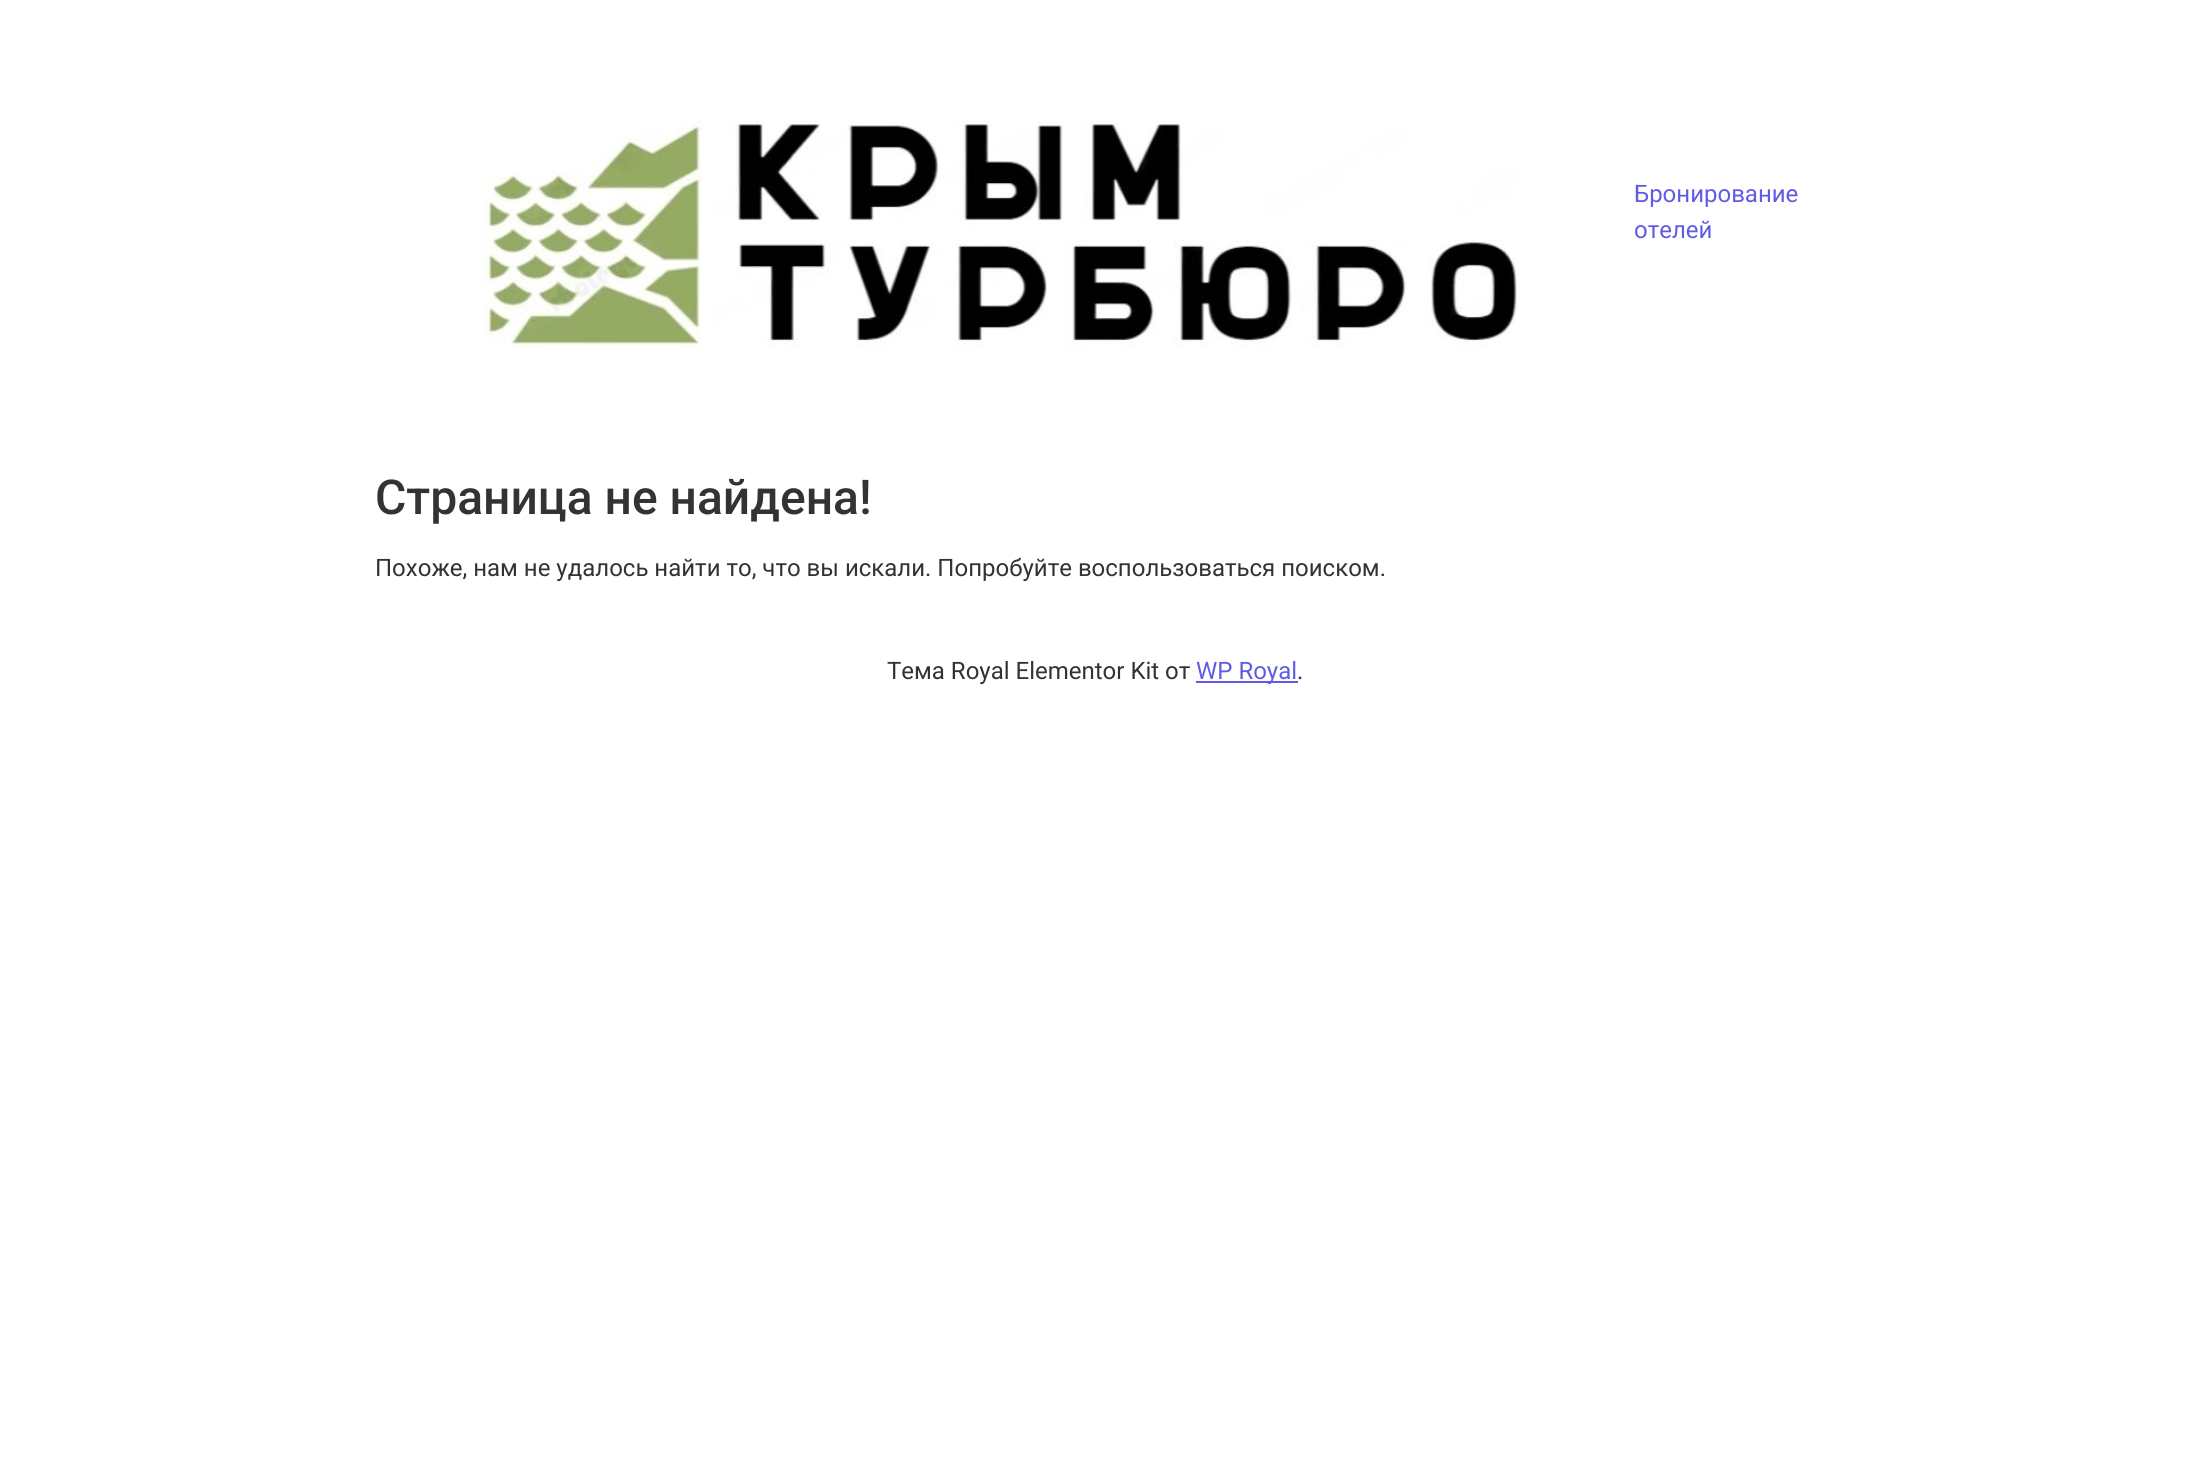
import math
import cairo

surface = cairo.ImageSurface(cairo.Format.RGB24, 2190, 1465)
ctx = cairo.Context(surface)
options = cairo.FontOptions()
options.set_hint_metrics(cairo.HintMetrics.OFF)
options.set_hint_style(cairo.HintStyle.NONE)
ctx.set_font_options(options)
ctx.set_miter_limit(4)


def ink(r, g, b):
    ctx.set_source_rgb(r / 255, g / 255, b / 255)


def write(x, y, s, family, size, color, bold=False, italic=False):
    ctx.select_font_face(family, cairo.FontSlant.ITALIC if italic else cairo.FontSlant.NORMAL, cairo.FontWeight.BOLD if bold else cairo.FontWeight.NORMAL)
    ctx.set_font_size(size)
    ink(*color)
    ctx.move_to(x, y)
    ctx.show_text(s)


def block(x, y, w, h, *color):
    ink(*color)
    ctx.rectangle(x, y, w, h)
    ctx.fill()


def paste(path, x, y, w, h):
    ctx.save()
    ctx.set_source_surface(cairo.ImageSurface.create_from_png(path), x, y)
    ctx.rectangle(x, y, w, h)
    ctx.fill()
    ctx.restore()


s1 = dict(family="Roboto", size=24, color=(96, 91, 229))
s2 = dict(family="Roboto Medium", size=48, color=(51, 51, 51))
s3 = dict(family="Roboto", size=24, color=(51, 51, 51))

ink(255, 255, 255)
ctx.paint()
paste("pic1.png", 483, 121, 1034, 231)
write(1634, 202, "Бронирование", **s1)
write(1634, 238, "отелей", **s1)
write(375, 514, "Страница не найдена!", **s2)
write(375, 576, "Похоже, нам не удалось найти то, что вы искали. Попробуйте воспользоваться поиском.", **s3)
write(887, 679, "Тема Royal Elementor Kit от", **s3)
block(1196, 681, 102, 2, 96, 91, 229)
write(1196, 679, "WP Royal", **s1)
write(1297, 679, ".", **s3)
surface.write_to_png("screenshot.png")
